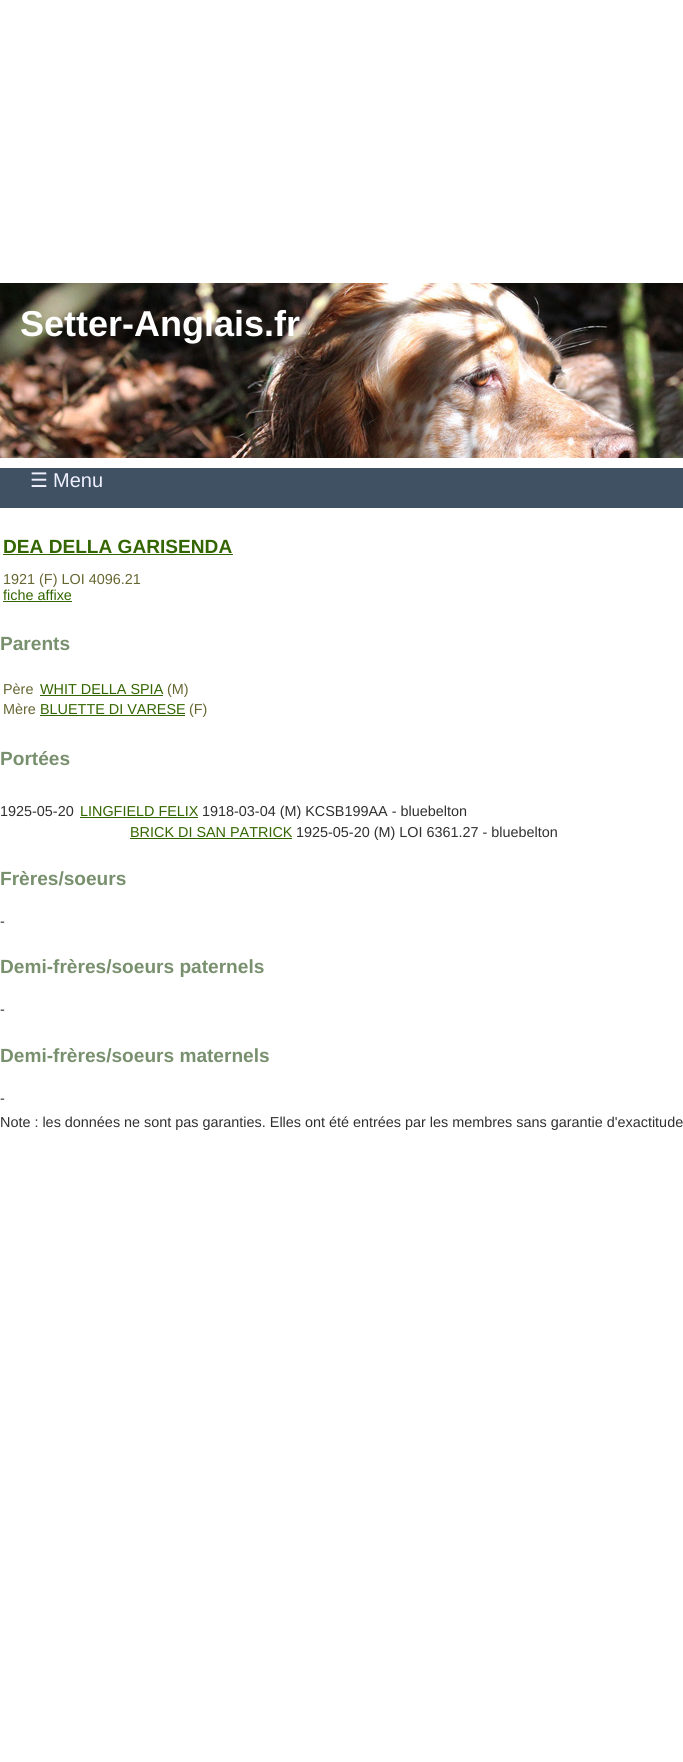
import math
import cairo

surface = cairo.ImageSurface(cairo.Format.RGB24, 683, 1762)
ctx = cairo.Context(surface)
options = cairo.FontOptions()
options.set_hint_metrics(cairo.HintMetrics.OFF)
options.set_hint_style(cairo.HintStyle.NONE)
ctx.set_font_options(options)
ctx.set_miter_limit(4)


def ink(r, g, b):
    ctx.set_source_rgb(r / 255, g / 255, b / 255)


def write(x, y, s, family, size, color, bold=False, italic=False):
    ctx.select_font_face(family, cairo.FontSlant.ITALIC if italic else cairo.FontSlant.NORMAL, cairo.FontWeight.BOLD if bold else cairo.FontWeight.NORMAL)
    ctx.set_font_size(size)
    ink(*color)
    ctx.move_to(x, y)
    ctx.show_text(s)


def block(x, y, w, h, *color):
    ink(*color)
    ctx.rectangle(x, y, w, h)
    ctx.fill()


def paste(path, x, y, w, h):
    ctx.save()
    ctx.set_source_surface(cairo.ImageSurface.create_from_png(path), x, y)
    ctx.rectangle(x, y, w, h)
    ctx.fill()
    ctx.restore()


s1 = dict(family="Liberation Sans", size=36, color=(255, 255, 255), bold=True)
s2 = dict(family="DejaVu Sans", size=20, color=(240, 240, 255))
s3 = dict(family="Liberation Sans", size=20, color=(240, 240, 255))
s4 = dict(family="Liberation Sans", size=19.1, color=(51, 102, 0), bold=True)
s5 = dict(family="Liberation Sans", size=14.4, color=(102, 102, 51))
s6 = dict(family="Liberation Sans", size=14.4, color=(51, 102, 0))
s7 = dict(family="Liberation Sans", size=19.1, color=(120, 144, 110), bold=True)
s8 = dict(family="Liberation Sans", size=14.4, color=(48, 48, 48))

ink(255, 255, 255)
ctx.paint()
paste("pic1.png", 0, 283, 683, 175)
write(20, 336, "Setter-Anglais.fr", **s1)
block(0, 468, 683, 40, 63, 81, 99)
write(30, 487, "☰", **s2)
write(53, 487, "Menu", **s3)
write(3, 553, "DEA DELLA GARISENDA", **s4)
block(3, 554, 230, 1, 51, 102, 0)
write(3, 584, "1921 (F) LOI 4096.21", **s5)
write(3, 600, "fiche affixe", **s6)
block(3, 601, 69, 1, 51, 102, 0)
write(0, 650, "Parents", **s7)
write(3, 694, "Père", **s5)
write(40, 694, "WHIT DELLA SPIA", **s6)
block(40, 695, 123, 1, 51, 102, 0)
write(167, 694, "(M)", **s5)
write(3, 714, "Mère", **s5)
write(40, 714, "BLUETTE DI VARESE", **s6)
block(40, 715, 145, 1, 51, 102, 0)
write(189, 714, "(F)", **s5)
write(0, 765, "Portées", **s7)
write(0, 816, "1925-05-20", **s8)
write(80, 816, "LINGFIELD FELIX", **s6)
block(80, 817, 118, 1, 51, 102, 0)
write(202, 816, "1918-03-04 (M) KCSB199AA - bluebelton", **s8)
write(130, 837, "BRICK DI SAN PATRICK", **s6)
block(130, 838, 162, 1, 51, 102, 0)
write(296, 837, "1925-05-20 (M) LOI 6361.27 - bluebelton", **s8)
write(0, 885, "Frères/soeurs", **s7)
write(0, 926, "-", **s8)
write(0, 973, "Demi-frères/soeurs paternels", **s7)
write(0, 1014, "-", **s8)
write(0, 1062, "Demi-frères/soeurs maternels", **s7)
write(0, 1103, "-", **s8)
write(0, 1127, "Note : les données ne sont pas garanties. Elles ont été entrées par les membres sans garantie d'exactitude", **s8)
surface.write_to_png("screenshot.png")
